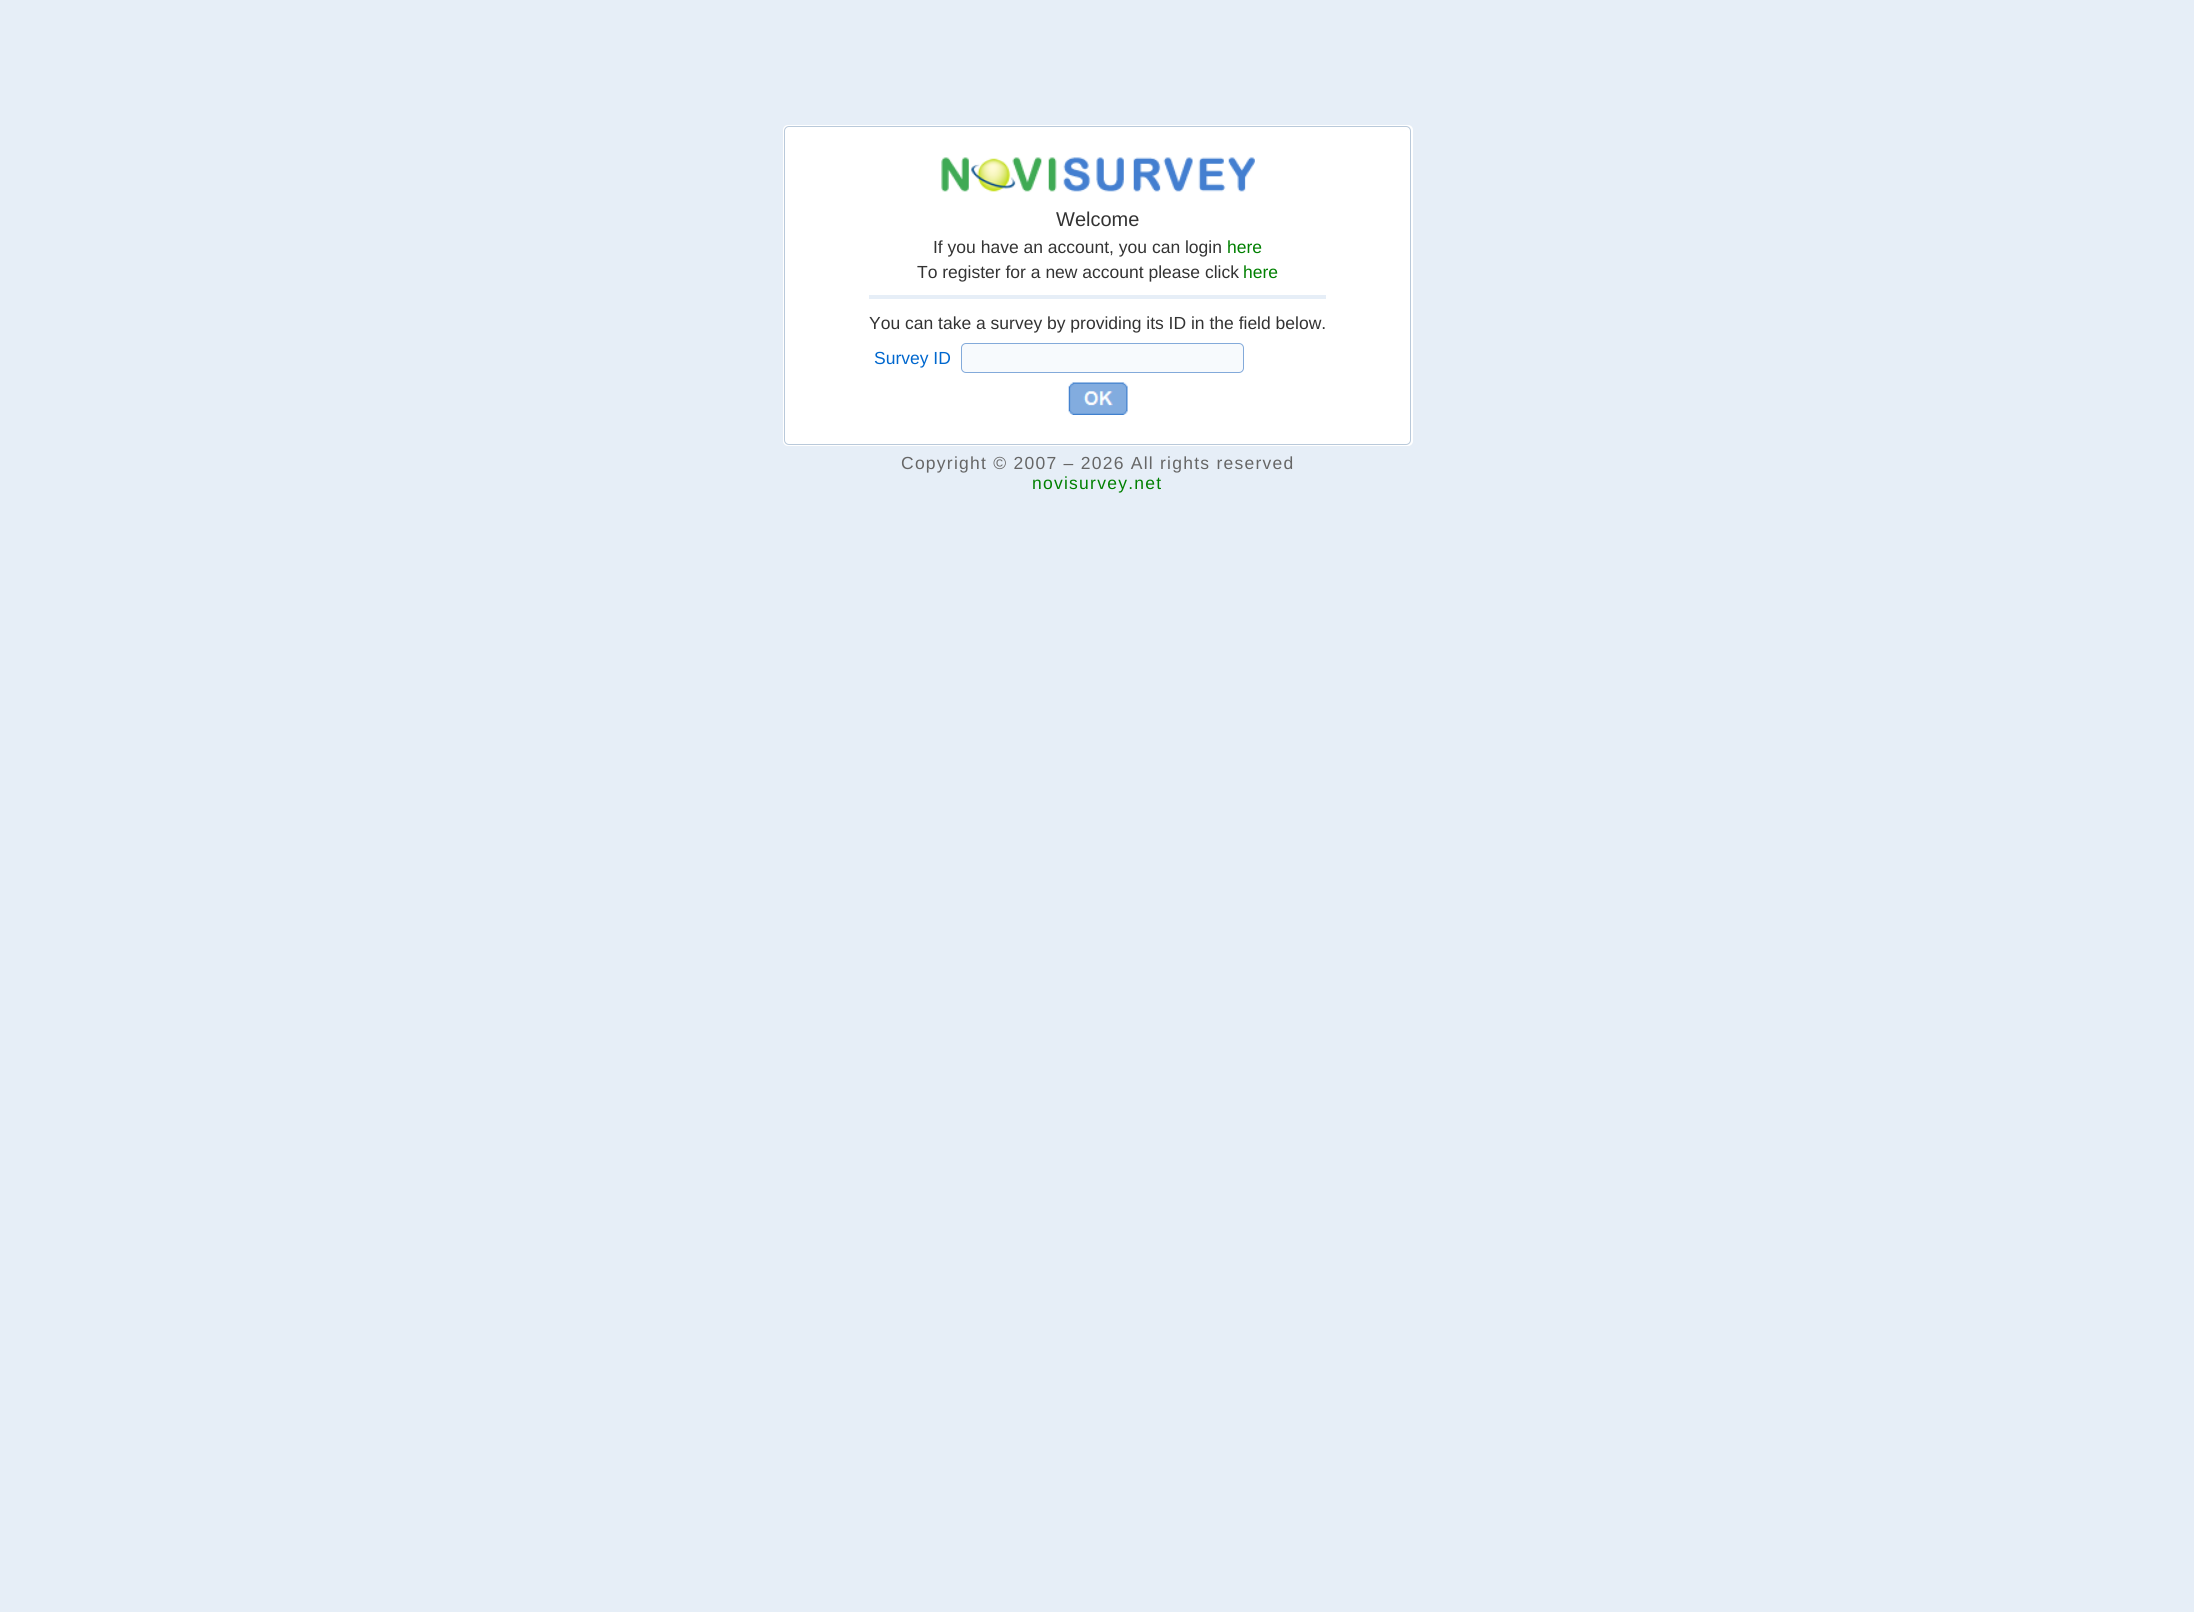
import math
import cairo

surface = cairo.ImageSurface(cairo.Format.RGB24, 2194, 1612)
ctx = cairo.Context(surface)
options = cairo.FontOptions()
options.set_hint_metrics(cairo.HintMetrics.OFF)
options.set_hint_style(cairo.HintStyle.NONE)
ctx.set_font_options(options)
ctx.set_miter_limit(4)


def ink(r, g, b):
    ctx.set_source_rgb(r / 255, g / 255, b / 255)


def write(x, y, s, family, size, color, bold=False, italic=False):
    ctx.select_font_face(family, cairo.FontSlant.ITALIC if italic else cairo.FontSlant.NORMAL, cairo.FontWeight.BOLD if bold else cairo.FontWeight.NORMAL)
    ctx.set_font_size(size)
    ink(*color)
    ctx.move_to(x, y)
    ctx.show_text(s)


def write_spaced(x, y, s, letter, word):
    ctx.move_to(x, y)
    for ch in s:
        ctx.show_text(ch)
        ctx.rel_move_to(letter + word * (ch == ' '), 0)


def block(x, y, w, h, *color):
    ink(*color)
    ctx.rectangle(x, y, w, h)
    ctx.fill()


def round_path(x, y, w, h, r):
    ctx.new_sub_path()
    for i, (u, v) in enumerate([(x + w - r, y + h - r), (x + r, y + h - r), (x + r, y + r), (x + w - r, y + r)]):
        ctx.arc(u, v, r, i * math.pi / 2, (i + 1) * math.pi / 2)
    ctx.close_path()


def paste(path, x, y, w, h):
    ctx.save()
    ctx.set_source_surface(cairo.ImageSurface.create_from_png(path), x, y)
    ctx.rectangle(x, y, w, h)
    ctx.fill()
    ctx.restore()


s1 = dict(family="Liberation Sans", size=20, color=(51, 51, 51))
s2 = dict(family="Liberation Sans", size=17.5, color=(51, 51, 51))
s3 = dict(family="Liberation Sans", size=17.5, color=(0, 128, 0))
s4 = dict(family="Liberation Sans", size=17.5, color=(0, 103, 206))

ink(230, 238, 247)
ctx.paint()
ink(255, 255, 255)
round_path(783, 125, 630, 321, 5)
ctx.fill()
round_path(784.5, 126.5, 626, 318, 4.5)
ink(185, 201, 218)
ctx.set_line_width(1)
ctx.stroke()
paste("pic1.png", 941, 157, 314, 35)
write(1056, 226, "Welcome", **s1)
write(933, 253, "If you have an account, you can login", **s2)
write(1227, 253, "here", **s3)
write(917, 278, "To register for a new account please click", **s2)
write(1243, 278, "here", **s3)
block(869, 295, 457, 4, 230, 238, 247)
write(869, 329, "You can take a survey by providing its ID in the field below.", **s2)
write(874, 364, "Survey ID", **s4)
ink(247, 250, 253)
round_path(961.5, 343.5, 282, 29, 4.5)
ctx.fill_preserve()
ink(131, 170, 218)
ctx.stroke()
paste("pic2.png", 1068, 382, 60, 33)
ink(102, 102, 102)
write_spaced(901, 469, "Copyright © 2007 – 2026 All rights reserved", 1.25, 0)
ink(0, 128, 0)
write_spaced(1032, 489, "novisurvey.net", 1.25, 0)
surface.write_to_png("screenshot.png")
